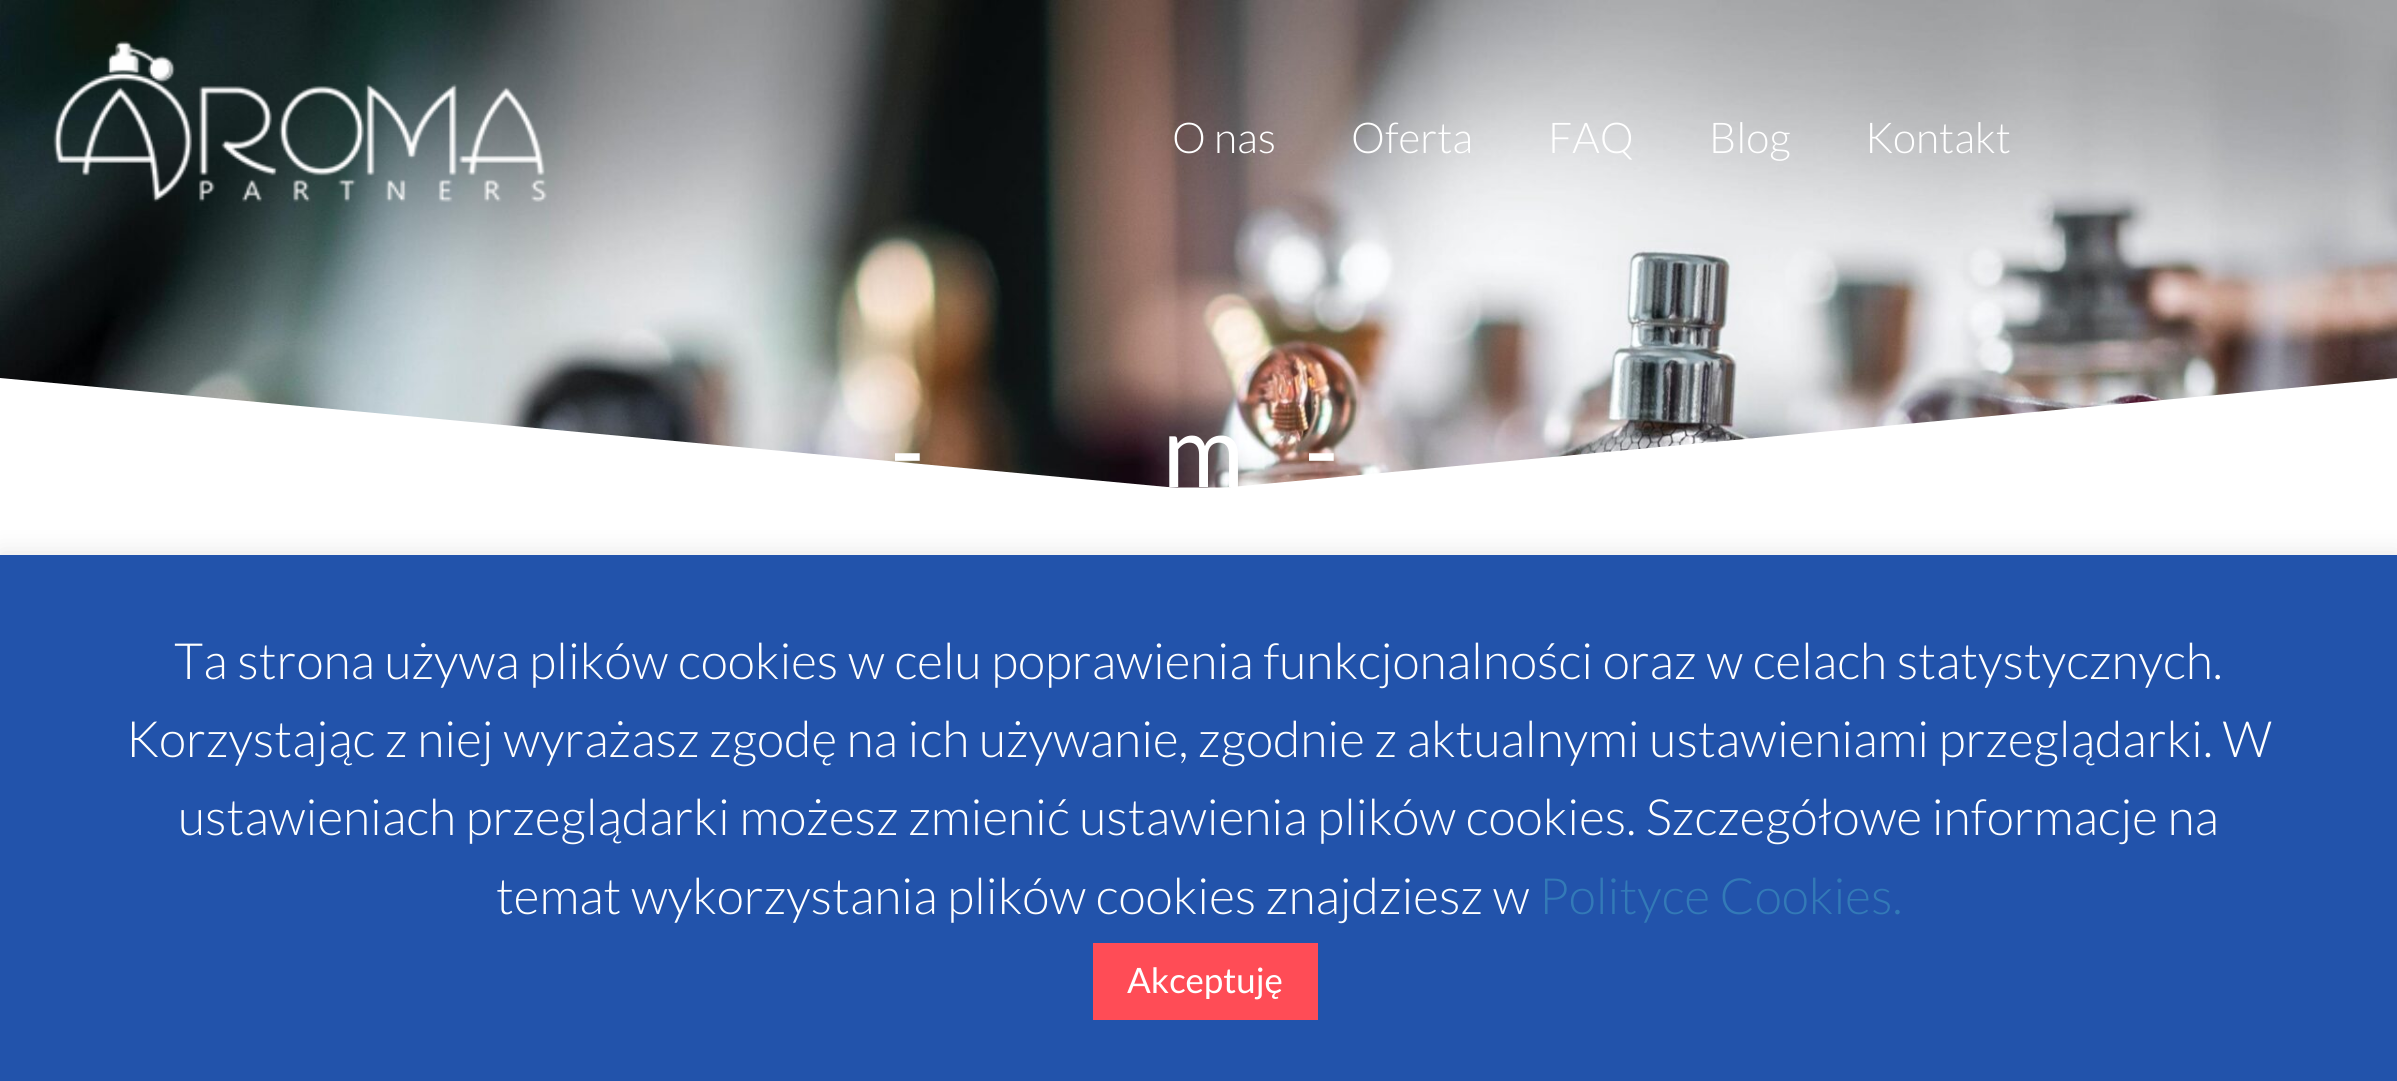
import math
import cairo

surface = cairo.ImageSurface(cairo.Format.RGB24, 2397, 1081)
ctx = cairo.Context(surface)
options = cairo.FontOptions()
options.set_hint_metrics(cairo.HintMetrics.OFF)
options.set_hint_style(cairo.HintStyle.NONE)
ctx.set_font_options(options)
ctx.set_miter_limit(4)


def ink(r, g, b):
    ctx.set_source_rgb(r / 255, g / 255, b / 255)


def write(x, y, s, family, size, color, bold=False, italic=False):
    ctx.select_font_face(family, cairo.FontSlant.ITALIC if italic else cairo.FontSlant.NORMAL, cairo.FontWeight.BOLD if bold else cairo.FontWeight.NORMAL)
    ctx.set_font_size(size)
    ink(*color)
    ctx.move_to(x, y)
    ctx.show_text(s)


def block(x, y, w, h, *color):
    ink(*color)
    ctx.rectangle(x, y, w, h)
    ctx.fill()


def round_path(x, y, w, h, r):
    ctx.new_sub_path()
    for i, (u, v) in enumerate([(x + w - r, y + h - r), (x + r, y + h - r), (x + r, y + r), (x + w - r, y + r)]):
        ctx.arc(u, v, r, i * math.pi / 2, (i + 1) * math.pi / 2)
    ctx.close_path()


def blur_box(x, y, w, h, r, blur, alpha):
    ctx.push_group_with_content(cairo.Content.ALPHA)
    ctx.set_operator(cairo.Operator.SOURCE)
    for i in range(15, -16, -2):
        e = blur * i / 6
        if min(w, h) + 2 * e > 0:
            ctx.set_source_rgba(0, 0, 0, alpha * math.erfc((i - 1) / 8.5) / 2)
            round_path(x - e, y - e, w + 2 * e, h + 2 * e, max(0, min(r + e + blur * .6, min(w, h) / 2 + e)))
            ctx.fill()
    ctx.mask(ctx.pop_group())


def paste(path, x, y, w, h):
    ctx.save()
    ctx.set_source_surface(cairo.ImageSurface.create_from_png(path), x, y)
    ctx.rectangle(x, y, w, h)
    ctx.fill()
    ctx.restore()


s1 = dict(family="Lato Light", size=42.5, color=(255, 255, 255))
s2 = dict(family="Lato", size=100, color=(255, 255, 255))
s3 = dict(family="Lato Light", size=50, color=(255, 255, 255))
s4 = dict(family="Lato Light", size=50, color=(51, 122, 183))
s5 = dict(family="Lato", size=35, color=(255, 255, 255))

ink(255, 255, 255)
ctx.paint()
paste("pic2.png", 0, 0, 2397, 488)
paste("pic1.png", 53, 41, 494, 161)
write(1172, 153, "O nas", **s1)
write(1351, 153, "Oferta", **s1)
write(1548, 153, "FAQ", **s1)
write(1709, 153, "Blog", **s1)
write(1865, 153, "Kontakt", **s1)
ctx.new_path()
ctx.move_to(0, 378)
ctx.line_to(1199, 490)
ctx.line_to(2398, 378)
ctx.line_to(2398, 490)
ctx.line_to(0, 490)
ctx.fill()
write(890, 487, "-", **s2)
write(1162, 487, "m", **s2)
write(1304, 487, "-", **s2)
ink(172, 171, 171)
blur_box(0, 553, 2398, 527, 0, 12.5, 0.3)
block(0, 555, 2397, 526, 34, 83, 171)
write(174, 679, "Ta strona używa plików cookies w celu poprawienia funkcjonalności oraz w celach statystycznych.", **s3)
write(126, 757, "Korzystając z niej wyrażasz zgodę na ich używanie, zgodnie z aktualnymi ustawieniami przeglądarki. W", **s3)
write(178, 835, "ustawieniach przeglądarki możesz zmienić ustawienia plików cookies. Szczegółowe informacje na", **s3)
write(496, 914, "temat wykorzystania plików cookies znajdziesz w", **s3)
write(1539, 914, "Polityce Cookies.", **s4)
block(1093, 943, 225, 77, 255, 76, 86)
write(1127, 993, "Akceptuję", **s5)
surface.write_to_png("screenshot.png")
